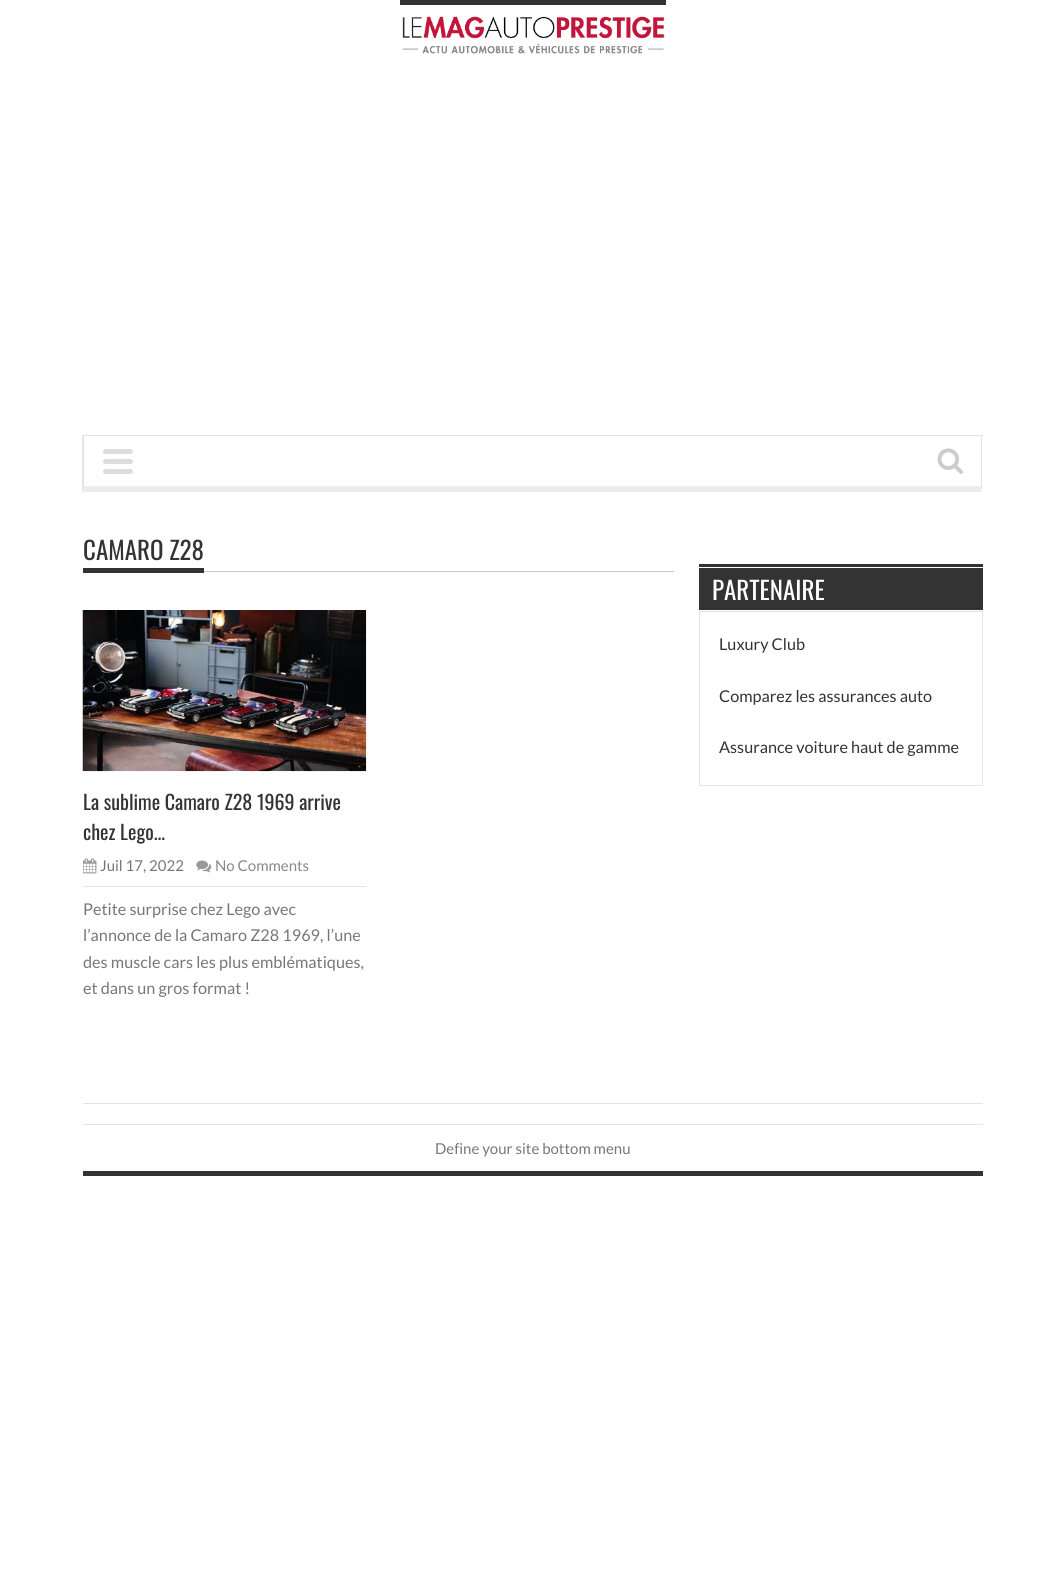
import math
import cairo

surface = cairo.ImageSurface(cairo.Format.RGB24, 1064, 1591)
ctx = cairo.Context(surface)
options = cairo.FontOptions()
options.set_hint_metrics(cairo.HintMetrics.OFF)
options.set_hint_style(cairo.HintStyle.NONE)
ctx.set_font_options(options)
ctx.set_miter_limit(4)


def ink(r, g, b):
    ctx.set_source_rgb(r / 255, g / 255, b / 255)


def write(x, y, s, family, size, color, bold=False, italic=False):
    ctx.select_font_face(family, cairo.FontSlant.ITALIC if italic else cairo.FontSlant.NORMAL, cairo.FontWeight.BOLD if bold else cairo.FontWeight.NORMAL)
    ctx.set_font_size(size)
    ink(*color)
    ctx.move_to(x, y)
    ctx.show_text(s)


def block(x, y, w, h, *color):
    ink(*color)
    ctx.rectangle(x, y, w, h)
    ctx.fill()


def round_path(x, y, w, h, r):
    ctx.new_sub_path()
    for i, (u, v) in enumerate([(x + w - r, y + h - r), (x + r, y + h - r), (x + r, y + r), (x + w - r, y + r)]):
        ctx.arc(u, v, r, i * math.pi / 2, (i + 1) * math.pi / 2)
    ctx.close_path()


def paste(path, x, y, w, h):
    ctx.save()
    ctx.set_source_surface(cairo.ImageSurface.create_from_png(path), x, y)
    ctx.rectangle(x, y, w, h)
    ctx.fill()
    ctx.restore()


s1 = dict(family="Oswald", size=25, color=(51, 51, 51))
s2 = dict(family="Oswald", size=20, color=(51, 51, 51))
s3 = dict(family="Lato", size=15, color=(119, 119, 119))
s4 = dict(family="Lato", size=15, color=(136, 136, 136))
s5 = dict(family="Lato", size=16.25, color=(119, 119, 119))
s6 = dict(family="Oswald", size=25, color=(255, 255, 255))
s7 = dict(family="Lato", size=16.25, color=(51, 51, 51))

ink(255, 255, 255)
ctx.paint()
block(400, 0, 266, 5, 51, 51, 51)
paste("pic1.png", 402, 16, 263, 38)
block(83, 435, 900, 1, 228, 228, 228)
ctx.new_path()
ctx.move_to(982, 435)
ctx.line_to(982, 492)
ctx.line_to(981, 486)
ctx.line_to(981, 436)
ctx.close_path()
ctx.fill()
ink(234, 236, 237)
ctx.new_path()
ctx.move_to(982, 492)
ctx.line_to(82, 492)
ctx.line_to(84, 486)
ctx.line_to(981, 486)
ctx.close_path()
ctx.fill()
ink(228, 228, 228)
ctx.new_path()
ctx.move_to(82, 492)
ctx.line_to(82, 435)
ctx.line_to(84, 436)
ctx.line_to(84, 486)
ctx.close_path()
ctx.fill()
ink(221, 221, 221)
round_path(103, 449, 30, 5, 2.5)
ctx.fill()
round_path(103, 459, 30, 5, 2.5)
ctx.fill()
round_path(103, 469, 30, 5, 2.5)
ctx.fill()
paste("pic2.png", 937, 448, 26, 26)
block(204, 571, 470, 1, 204, 204, 204)
block(83, 568, 121, 5, 51, 51, 51)
write(83, 560, "CAMARO Z28", **s1)
paste("pic3.png", 82, 610, 285, 162)
write(83, 810, "La sublime Camaro Z28 1969 arrive", **s2)
write(83, 840, "chez Lego...", **s2)
block(83, 886, 283, 1, 228, 228, 228)
paste("pic4.png", 83, 858, 14, 16)
write(100, 871, "Juil 17, 2022", **s3)
paste("pic5.png", 196, 860, 16, 13)
write(215, 871, "No Comments", **s4)
write(83, 915, "Petite surprise chez Lego avec", **s5)
write(83, 941, "l’annonce de la Camaro Z28 1969, l’une", **s5)
write(83, 968, "des muscle cars les plus emblématiques,", **s5)
write(83, 994, "et dans un gros format !", **s5)
block(699, 568, 284, 42, 51, 51, 51)
block(699, 564, 284, 3, 51, 51, 51)
write(712, 600, "PARTENAIRE", **s6)
ctx.rectangle(699.5, 611.5, 283, 174)
ink(228, 228, 228)
ctx.set_line_width(1)
ctx.stroke()
write(719, 650, "Luxury Club", **s7)
write(719, 702, "Comparez les assurances auto", **s7)
write(719, 753, "Assurance voiture haut de gamme", **s7)
block(83, 1103, 900, 1, 228, 228, 228)
block(83, 1124, 900, 1, 229, 229, 229)
block(83, 1171, 900, 5, 51, 51, 51)
write(435, 1154, "Define your site bottom menu", **s3)
surface.write_to_png("screenshot.png")
